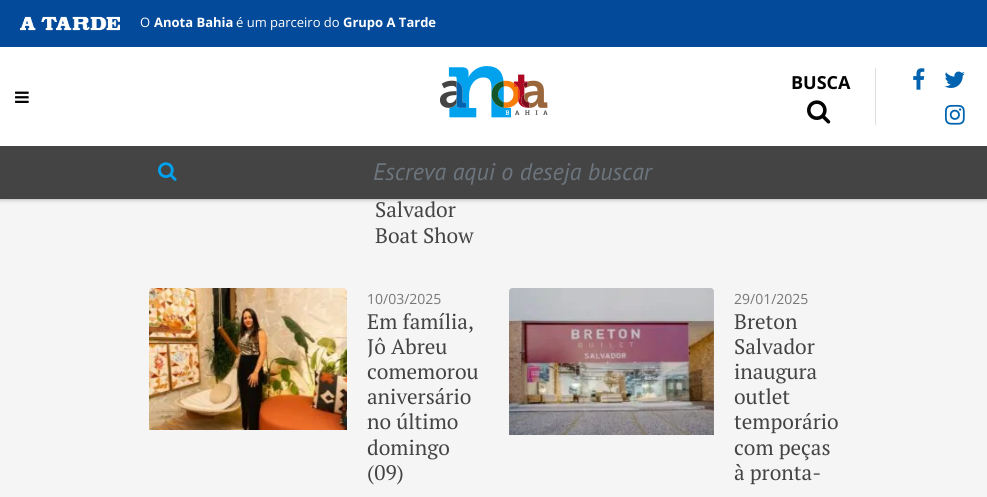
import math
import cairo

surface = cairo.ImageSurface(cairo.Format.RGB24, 987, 497)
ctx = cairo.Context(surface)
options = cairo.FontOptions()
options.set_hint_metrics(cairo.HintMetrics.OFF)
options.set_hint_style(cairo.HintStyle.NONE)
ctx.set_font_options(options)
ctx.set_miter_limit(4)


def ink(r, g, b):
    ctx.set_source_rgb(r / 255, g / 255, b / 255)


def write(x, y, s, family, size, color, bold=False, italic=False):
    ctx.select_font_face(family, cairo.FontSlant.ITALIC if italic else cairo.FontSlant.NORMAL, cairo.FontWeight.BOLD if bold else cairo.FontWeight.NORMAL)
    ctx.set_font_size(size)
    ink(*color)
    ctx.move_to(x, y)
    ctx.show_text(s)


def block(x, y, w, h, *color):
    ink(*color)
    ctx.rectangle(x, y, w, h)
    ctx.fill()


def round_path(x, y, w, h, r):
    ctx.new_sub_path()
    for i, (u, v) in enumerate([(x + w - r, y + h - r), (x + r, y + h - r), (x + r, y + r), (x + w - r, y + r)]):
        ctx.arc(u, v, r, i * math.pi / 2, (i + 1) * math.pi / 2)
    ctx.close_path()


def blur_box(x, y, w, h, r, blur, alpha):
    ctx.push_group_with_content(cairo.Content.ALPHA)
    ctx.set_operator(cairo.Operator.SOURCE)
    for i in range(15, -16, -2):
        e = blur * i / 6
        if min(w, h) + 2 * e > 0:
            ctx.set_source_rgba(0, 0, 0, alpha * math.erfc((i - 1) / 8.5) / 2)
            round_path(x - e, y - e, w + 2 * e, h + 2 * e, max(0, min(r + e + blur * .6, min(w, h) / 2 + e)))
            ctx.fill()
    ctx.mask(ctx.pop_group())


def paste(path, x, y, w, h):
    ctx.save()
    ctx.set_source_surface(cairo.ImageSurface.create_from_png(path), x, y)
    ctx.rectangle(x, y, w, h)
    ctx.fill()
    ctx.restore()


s1 = dict(family="Open Sans", size=13, color=(255, 255, 255))
s2 = dict(family="Open Sans", size=13, color=(255, 255, 255), bold=True)
s3 = dict(family="Open Sans", size=18, color=(3, 3, 3), bold=True)
s4 = dict(family="PT Sans", size=24, color=(108, 117, 125), italic=True)
s5 = dict(family="PT Serif", size=21, color=(68, 68, 68))
s6 = dict(family="Open Sans", size=14, color=(119, 119, 119))

ink(245, 245, 245)
ctx.paint()
block(0, 0, 987, 47, 3, 74, 154)
paste("pic1.png", 20, 16, 100, 15)
write(140, 27, "O", **s1)
write(154, 27, "Anota Bahia", **s2)
write(236, 27, "é um parceiro do", **s1)
write(343, 27, "Grupo A Tarde", **s2)
ink(0, 0, 0)
blur_box(0, 146, 987, 53, 0, 2.5, 0.36)
block(0, 47, 987, 99, 255, 255, 255)
paste("pic2.png", 439, 66, 109, 52)
ink(221, 221, 221)
ctx.new_path()
ctx.move_to(876, 67)
ctx.line_to(876, 126)
ctx.line_to(875, 124)
ctx.line_to(875, 69)
ctx.close_path()
ctx.fill()
write(791, 89, "BUSCA", **s3)
paste("pic3.png", 807, 100, 24, 24)
paste("pic4.png", 913, 68, 12, 22)
paste("pic5.png", 944, 71, 21, 17)
paste("pic6.png", 945, 104, 20, 21)
paste("pic7.png", 15, 91, 14, 12)
block(0, 146, 987, 53, 68, 68, 68)
paste("pic8.png", 158, 162, 19, 19)
write(373, 180, "Escreva aqui o deseja buscar", **s4)
write(375, 217, "Salvador", **s5)
write(375, 243, "Boat Show", **s5)
paste("pic9.png", 149, 288, 198, 142)
write(367, 304, "10/03/2025", **s6)
write(367, 329, "Em família,", **s5)
write(367, 354, "Jô Abreu", **s5)
write(367, 379, "comemorou", **s5)
write(367, 404, "aniversário", **s5)
write(367, 429, "no último", **s5)
write(367, 455, "domingo", **s5)
write(367, 480, "(09)", **s5)
paste("pic10.png", 509, 288, 205, 147)
write(734, 304, "29/01/2025", **s6)
write(734, 329, "Breton", **s5)
write(734, 354, "Salvador", **s5)
write(734, 379, "inaugura", **s5)
write(734, 404, "outlet", **s5)
write(734, 429, "temporário", **s5)
write(734, 455, "com peças", **s5)
write(734, 480, "à pronta-", **s5)
surface.write_to_png("screenshot.png")
